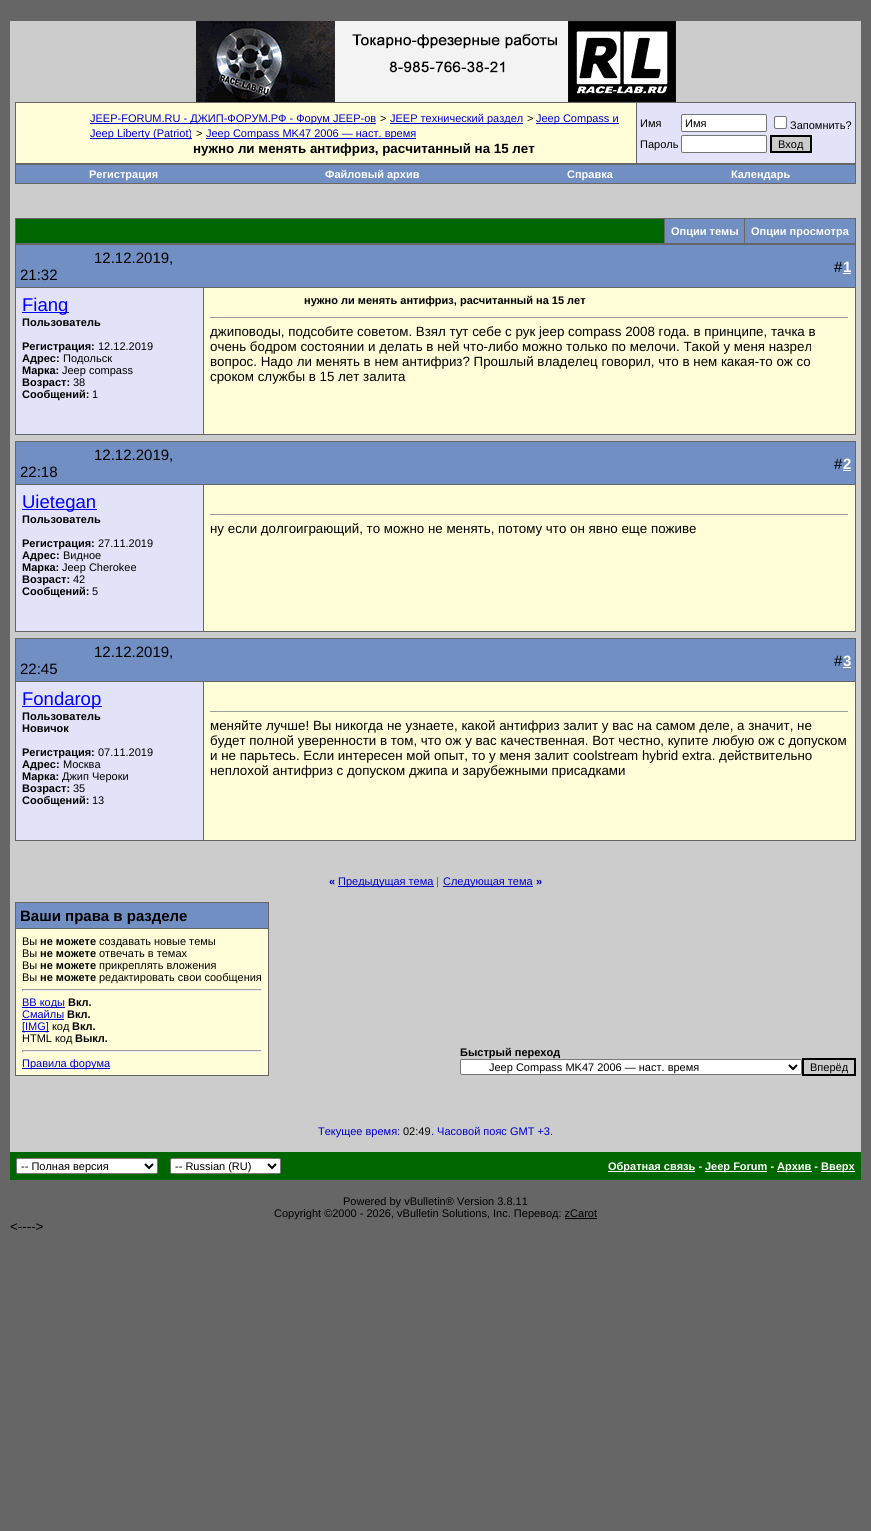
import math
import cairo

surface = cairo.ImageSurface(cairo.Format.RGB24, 871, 1531)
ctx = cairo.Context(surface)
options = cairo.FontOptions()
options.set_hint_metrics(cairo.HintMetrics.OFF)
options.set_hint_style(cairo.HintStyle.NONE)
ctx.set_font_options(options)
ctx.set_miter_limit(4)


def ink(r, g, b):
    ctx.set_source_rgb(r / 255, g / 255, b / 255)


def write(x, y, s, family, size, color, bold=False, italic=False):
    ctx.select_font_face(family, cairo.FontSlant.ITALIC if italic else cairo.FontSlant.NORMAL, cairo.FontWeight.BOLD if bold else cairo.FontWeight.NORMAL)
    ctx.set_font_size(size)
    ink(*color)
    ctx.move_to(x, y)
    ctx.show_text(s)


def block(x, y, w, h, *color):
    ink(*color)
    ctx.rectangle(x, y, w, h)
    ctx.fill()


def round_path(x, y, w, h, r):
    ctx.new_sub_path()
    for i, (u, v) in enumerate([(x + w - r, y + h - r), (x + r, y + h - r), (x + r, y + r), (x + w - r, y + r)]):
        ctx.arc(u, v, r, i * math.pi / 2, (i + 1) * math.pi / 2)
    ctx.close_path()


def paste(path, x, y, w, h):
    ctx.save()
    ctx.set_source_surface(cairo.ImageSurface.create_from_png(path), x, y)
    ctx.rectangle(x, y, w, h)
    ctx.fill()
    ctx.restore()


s1 = dict(family="Liberation Sans", size=11, color=(0, 0, 204))
s2 = dict(family="Liberation Sans", size=11, color=(0, 0, 0))
s3 = dict(family="Liberation Sans", size=13.35, color=(0, 0, 0), bold=True)
s4 = dict(family="Liberation Sans", size=11, color=(255, 255, 255), bold=True)
s5 = dict(family="Liberation Sans", size=15, color=(0, 0, 0))
s6 = dict(family="Liberation Sans", size=15, color=(255, 255, 255), bold=True)
s7 = dict(family="Liberation Sans", size=18.5, color=(0, 0, 255))
s8 = dict(family="Liberation Sans", size=11, color=(0, 0, 0), bold=True)
s9 = dict(family="Liberation Sans", size=13.35, color=(0, 0, 0))
s10 = dict(family="Liberation Sans", size=11, color=(0, 0, 204), bold=True)
s11 = dict(family="Liberation Sans", size=15, color=(0, 0, 0), bold=True)

ink(102, 102, 102)
ctx.paint()
block(10, 21, 851, 1131, 204, 204, 204)
paste("pic1.png", 196, 21, 480, 81)
block(15, 102, 841, 82, 102, 102, 102)
block(16, 103, 620, 60, 255, 254, 216)
block(90, 123, 286, 1, 0, 0, 204)
write(90, 122, "JEEP-FORUM.RU - ДЖИП-ФОРУМ.РФ - Форум JEEP-ов", **s1)
write(380, 122, ">", **s2)
block(390, 123, 133, 1, 0, 0, 204)
write(390, 122, "JEEP технический раздел", **s1)
write(527, 122, ">", **s2)
block(536, 123, 83, 1, 0, 0, 204)
write(536, 122, "Jeep Compass и", **s1)
block(90, 138, 102, 1, 0, 0, 204)
write(90, 137, "Jeep Liberty (Patriot)", **s1)
write(196, 137, ">", **s2)
block(206, 138, 210, 1, 0, 0, 204)
write(206, 137, "Jeep Compass MK47 2006 — наст. время", **s1)
write(193, 153, "нужно ли менять антифриз, расчитанный на 15 лет", **s3)
block(637, 103, 218, 60, 226, 227, 248)
write(640, 127, "Имя", **s2)
ink(255, 255, 255)
round_path(681.5, 114.5, 85, 17, 1.5)
ctx.fill_preserve()
ink(118, 118, 118)
ctx.set_line_width(1)
ctx.stroke()
write(685, 127, "Имя", **s2)
ink(255, 255, 255)
round_path(774.5, 116.5, 12, 12, 1.5)
ctx.fill_preserve()
ink(118, 118, 118)
ctx.stroke()
write(790, 129, "Запомнить?", **s2)
write(640, 148, "Пароль", **s2)
ink(255, 255, 255)
round_path(681.5, 135.5, 85, 17, 1.5)
ctx.fill_preserve()
ink(118, 118, 118)
ctx.stroke()
ink(204, 204, 204)
ctx.rectangle(771, 136, 40, 16)
ctx.fill_preserve()
ink(0, 0, 0)
ctx.set_line_width(2)
ctx.stroke()
write(778, 148, "Вход", **s2)
block(16, 165, 839, 18, 113, 143, 195)
write(89, 178, "Регистрация", **s4)
write(325, 178, "Файловый архив", **s4)
write(567, 178, "Справка", **s4)
write(731, 178, "Календарь", **s4)
block(15, 218, 841, 26, 102, 102, 102)
block(16, 219, 648, 24, 0, 102, 0)
block(665, 219, 79, 24, 113, 143, 195)
write(671, 235, "Опции темы", **s4)
block(745, 219, 110, 24, 113, 143, 195)
write(751, 235, "Опции просмотра", **s4)
block(16, 245, 839, 42, 113, 143, 195)
block(15, 244, 841, 1, 102, 102, 102)
block(15, 287, 189, 1, 102, 102, 102)
block(15, 244, 1, 162, 102, 102, 102)
write(94, 263, "12.12.2019,", **s5)
write(20, 280, "21:32", **s5)
block(855, 244, 1, 191, 102, 102, 102)
block(204, 287, 652, 1, 102, 102, 102)
write(834, 272, "#", **s5)
write(843, 272, "1", **s6)
block(843, 273, 8, 1, 255, 255, 255)
block(16, 288, 187, 146, 226, 227, 248)
block(203, 288, 1, 147, 102, 102, 102)
block(22, 312, 47, 1, 0, 0, 255)
write(22, 311, "Fiang", **s7)
write(22, 326, "Пользователь", **s8)
write(22, 350, "Регистрация:", **s8)
write(98, 350, "12.12.2019", **s2)
write(22, 362, "Адрес:", **s8)
write(63, 362, "Подольск", **s2)
write(22, 374, "Марка:", **s8)
write(62, 374, "Jeep compass", **s2)
write(22, 386, "Возраст:", **s8)
write(73, 386, "38", **s2)
write(22, 398, "Сообщений:", **s8)
write(92, 398, "1", **s2)
block(204, 288, 651, 146, 255, 254, 216)
write(304, 304, "нужно ли менять антифриз, расчитанный на 15 лет", **s8)
block(210, 317, 639, 1, 159, 159, 159)
block(848, 317, 1, 1, 238, 238, 238)
write(210, 336, "джиповоды, подсобите советом. Взял тут себе с рук jeep compass 2008 года. в принципе, тачка в", **s9)
write(210, 351, "очень бодром состоянии и делать в ней что-либо можно только по мелочи. Такой у меня назрел", **s9)
write(210, 366, "вопрос. Надо ли менять в нем антифриз? Прошлый владелец говорил, что в нем какая-то ож со", **s9)
write(210, 381, "сроком службы в 15 лет залита", **s9)
block(15, 434, 841, 1, 102, 102, 102)
block(15, 406, 1, 29, 102, 102, 102)
block(16, 442, 839, 42, 113, 143, 195)
block(15, 441, 841, 1, 102, 102, 102)
block(15, 484, 189, 1, 102, 102, 102)
block(15, 441, 1, 162, 102, 102, 102)
write(94, 460, "12.12.2019,", **s5)
write(20, 477, "22:18", **s5)
block(855, 441, 1, 191, 102, 102, 102)
block(204, 484, 652, 1, 102, 102, 102)
write(834, 469, "#", **s5)
write(843, 469, "2", **s6)
block(843, 470, 8, 1, 255, 255, 255)
block(16, 485, 187, 146, 226, 227, 248)
block(203, 485, 1, 147, 102, 102, 102)
block(22, 509, 75, 1, 0, 0, 255)
write(22, 508, "Uietegan", **s7)
write(22, 523, "Пользователь", **s8)
write(22, 547, "Регистрация:", **s8)
write(98, 547, "27.11.2019", **s2)
write(22, 559, "Адрес:", **s8)
write(63, 559, "Видное", **s2)
write(22, 571, "Марка:", **s8)
write(62, 571, "Jeep Cherokee", **s2)
write(22, 583, "Возраст:", **s8)
write(73, 583, "42", **s2)
write(22, 595, "Сообщений:", **s8)
write(92, 595, "5", **s2)
block(204, 485, 651, 146, 255, 254, 216)
block(210, 514, 639, 1, 159, 159, 159)
block(848, 514, 1, 1, 238, 238, 238)
write(210, 533, "ну если долгоиграющий, то можно не менять, потому что он явно еще поживе", **s9)
block(15, 631, 841, 1, 102, 102, 102)
block(15, 603, 1, 29, 102, 102, 102)
block(16, 639, 839, 42, 113, 143, 195)
block(15, 638, 841, 1, 102, 102, 102)
block(15, 681, 189, 1, 102, 102, 102)
block(15, 638, 1, 174, 102, 102, 102)
write(94, 657, "12.12.2019,", **s5)
write(20, 674, "22:45", **s5)
block(855, 638, 1, 203, 102, 102, 102)
block(204, 681, 652, 1, 102, 102, 102)
write(834, 666, "#", **s5)
write(843, 666, "3", **s6)
block(843, 667, 8, 1, 255, 255, 255)
block(16, 682, 187, 158, 226, 227, 248)
block(203, 682, 1, 159, 102, 102, 102)
block(22, 706, 80, 1, 0, 0, 255)
write(22, 705, "Fondarop", **s7)
write(22, 720, "Пользователь", **s8)
write(22, 732, "Новичок", **s8)
write(22, 756, "Регистрация:", **s8)
write(98, 756, "07.11.2019", **s2)
write(22, 768, "Адрес:", **s8)
write(63, 768, "Москва", **s2)
write(22, 780, "Марка:", **s8)
write(62, 780, "Джип Чероки", **s2)
write(22, 792, "Возраст:", **s8)
write(73, 792, "35", **s2)
write(22, 804, "Сообщений:", **s8)
write(92, 804, "13", **s2)
block(204, 682, 651, 158, 255, 254, 216)
block(210, 711, 639, 1, 159, 159, 159)
block(848, 711, 1, 1, 238, 238, 238)
write(210, 730, "меняйте лучше! Вы никогда не узнаете, какой антифриз залит у вас на самом деле, а значит, не", **s9)
write(210, 745, "будет полной уверенности в том, что ож у вас качественная. Вот честно, купите любую ож с допуском", **s9)
write(210, 760, "и не парьтесь. Если интересен мой опыт, то у меня залит coolstream hybrid extra. действительно", **s9)
write(210, 775, "неплохой антифриз с допуском джипа и зарубежными присадками", **s9)
block(15, 840, 841, 1, 102, 102, 102)
block(15, 812, 1, 29, 102, 102, 102)
write(329, 885, "«", **s10)
block(338, 886, 96, 1, 0, 0, 204)
write(338, 885, "Предыдущая тема |", **s1)
block(443, 886, 90, 1, 0, 0, 204)
write(443, 885, "Следующая тема", **s1)
write(536, 885, "»", **s10)
block(15, 902, 254, 174, 102, 102, 102)
block(16, 903, 252, 25, 113, 143, 195)
write(20, 921, "Ваши права в разделе", **s11)
block(16, 929, 252, 146, 255, 254, 216)
write(22, 945, "Вы", **s2)
write(40, 945, "не можете", **s8)
write(99, 945, "создавать новые темы", **s2)
write(22, 957, "Вы", **s2)
write(40, 957, "не можете", **s8)
write(99, 957, "отвечать в темах", **s2)
write(22, 969, "Вы", **s2)
write(40, 969, "не можете", **s8)
write(99, 969, "прикреплять вложения", **s2)
write(22, 981, "Вы", **s2)
write(40, 981, "не можете", **s8)
write(99, 981, "редактировать свои сообщения", **s2)
block(22, 989, 240, 1, 159, 159, 159)
block(261, 989, 1, 2, 238, 238, 238)
block(22, 990, 240, 1, 238, 238, 238)
block(22, 989, 1, 2, 159, 159, 159)
block(22, 1007, 43, 1, 0, 0, 204)
write(22, 1006, "BB коды", **s1)
write(68, 1006, "Вкл.", **s8)
write(22, 1018, "Смайлы", **s1)
block(50, 1008, 7, 1, 255, 254, 216)
block(22, 1019, 42, 1, 0, 0, 204)
write(67, 1018, "Вкл.", **s8)
block(22, 1031, 27, 1, 0, 0, 204)
write(22, 1030, "[IMG]", **s1)
write(52, 1030, "код", **s2)
write(72, 1030, "Вкл.", **s8)
write(22, 1042, "HTML код", **s2)
write(75, 1042, "Выкл.", **s8)
block(22, 1050, 240, 1, 159, 159, 159)
block(261, 1050, 1, 2, 238, 238, 238)
block(22, 1051, 240, 1, 238, 238, 238)
block(22, 1050, 1, 2, 159, 159, 159)
block(22, 1068, 88, 1, 0, 0, 204)
write(22, 1067, "Правила форума", **s1)
write(460, 1056, "Быстрый переход", **s8)
ink(255, 255, 255)
round_path(460.5, 1059.5, 341, 15, 1.5)
ctx.fill_preserve()
ink(118, 118, 118)
ctx.set_line_width(1)
ctx.stroke()
ctx.new_path()
ctx.move_to(789, 1065)
ctx.line_to(793, 1069)
ctx.line_to(797, 1065)
ink(0, 0, 0)
ctx.set_line_width(2)
ctx.stroke()
write(489, 1071, "Jeep Compass MK47 2006 — наст. время", **s2)
ctx.rectangle(803, 1059, 52, 16)
ctx.stroke()
write(810, 1071, "Вперёд", **s2)
write(318, 1135, "Текущее время:", **s1)
write(403, 1135, "02:49", **s2)
write(431, 1135, ". Часовой пояс GMT +3.", **s1)
block(10, 1152, 851, 28, 0, 102, 0)
ink(255, 255, 255)
round_path(16.5, 1158.5, 141, 15, 1.5)
ctx.fill_preserve()
ink(118, 118, 118)
ctx.set_line_width(1)
ctx.stroke()
ctx.new_path()
ctx.move_to(145, 1164)
ctx.line_to(149, 1168)
ctx.line_to(153, 1164)
ink(0, 0, 0)
ctx.set_line_width(2)
ctx.stroke()
write(21, 1170, "-- Полная версия", **s2)
ink(255, 255, 255)
round_path(170.5, 1158.5, 110, 15, 1.5)
ctx.fill_preserve()
ink(118, 118, 118)
ctx.set_line_width(1)
ctx.stroke()
ctx.new_path()
ctx.move_to(268, 1164)
ctx.line_to(272, 1168)
ctx.line_to(276, 1164)
ink(0, 0, 0)
ctx.set_line_width(2)
ctx.stroke()
write(175, 1170, "-- Russian (RU)", **s2)
block(608, 1171, 87, 1, 255, 255, 255)
write(608, 1170, "Обратная связь -", **s4)
block(705, 1171, 62, 1, 255, 255, 255)
write(705, 1170, "Jeep Forum -", **s4)
block(777, 1171, 35, 1, 255, 255, 255)
write(777, 1170, "Архив -", **s4)
block(821, 1171, 34, 1, 255, 255, 255)
write(821, 1170, "Вверх", **s4)
write(343, 1205, "Powered by vBulletin® Version 3.8.11", **s2)
write(274, 1217, "Copyright ©2000 - 2026, vBulletin Solutions, Inc. Перевод: zCarot", **s2)
block(565, 1218, 32, 1, 0, 0, 0)
write(10, 1231, "<---->", **s9)
surface.write_to_png("screenshot.png")
